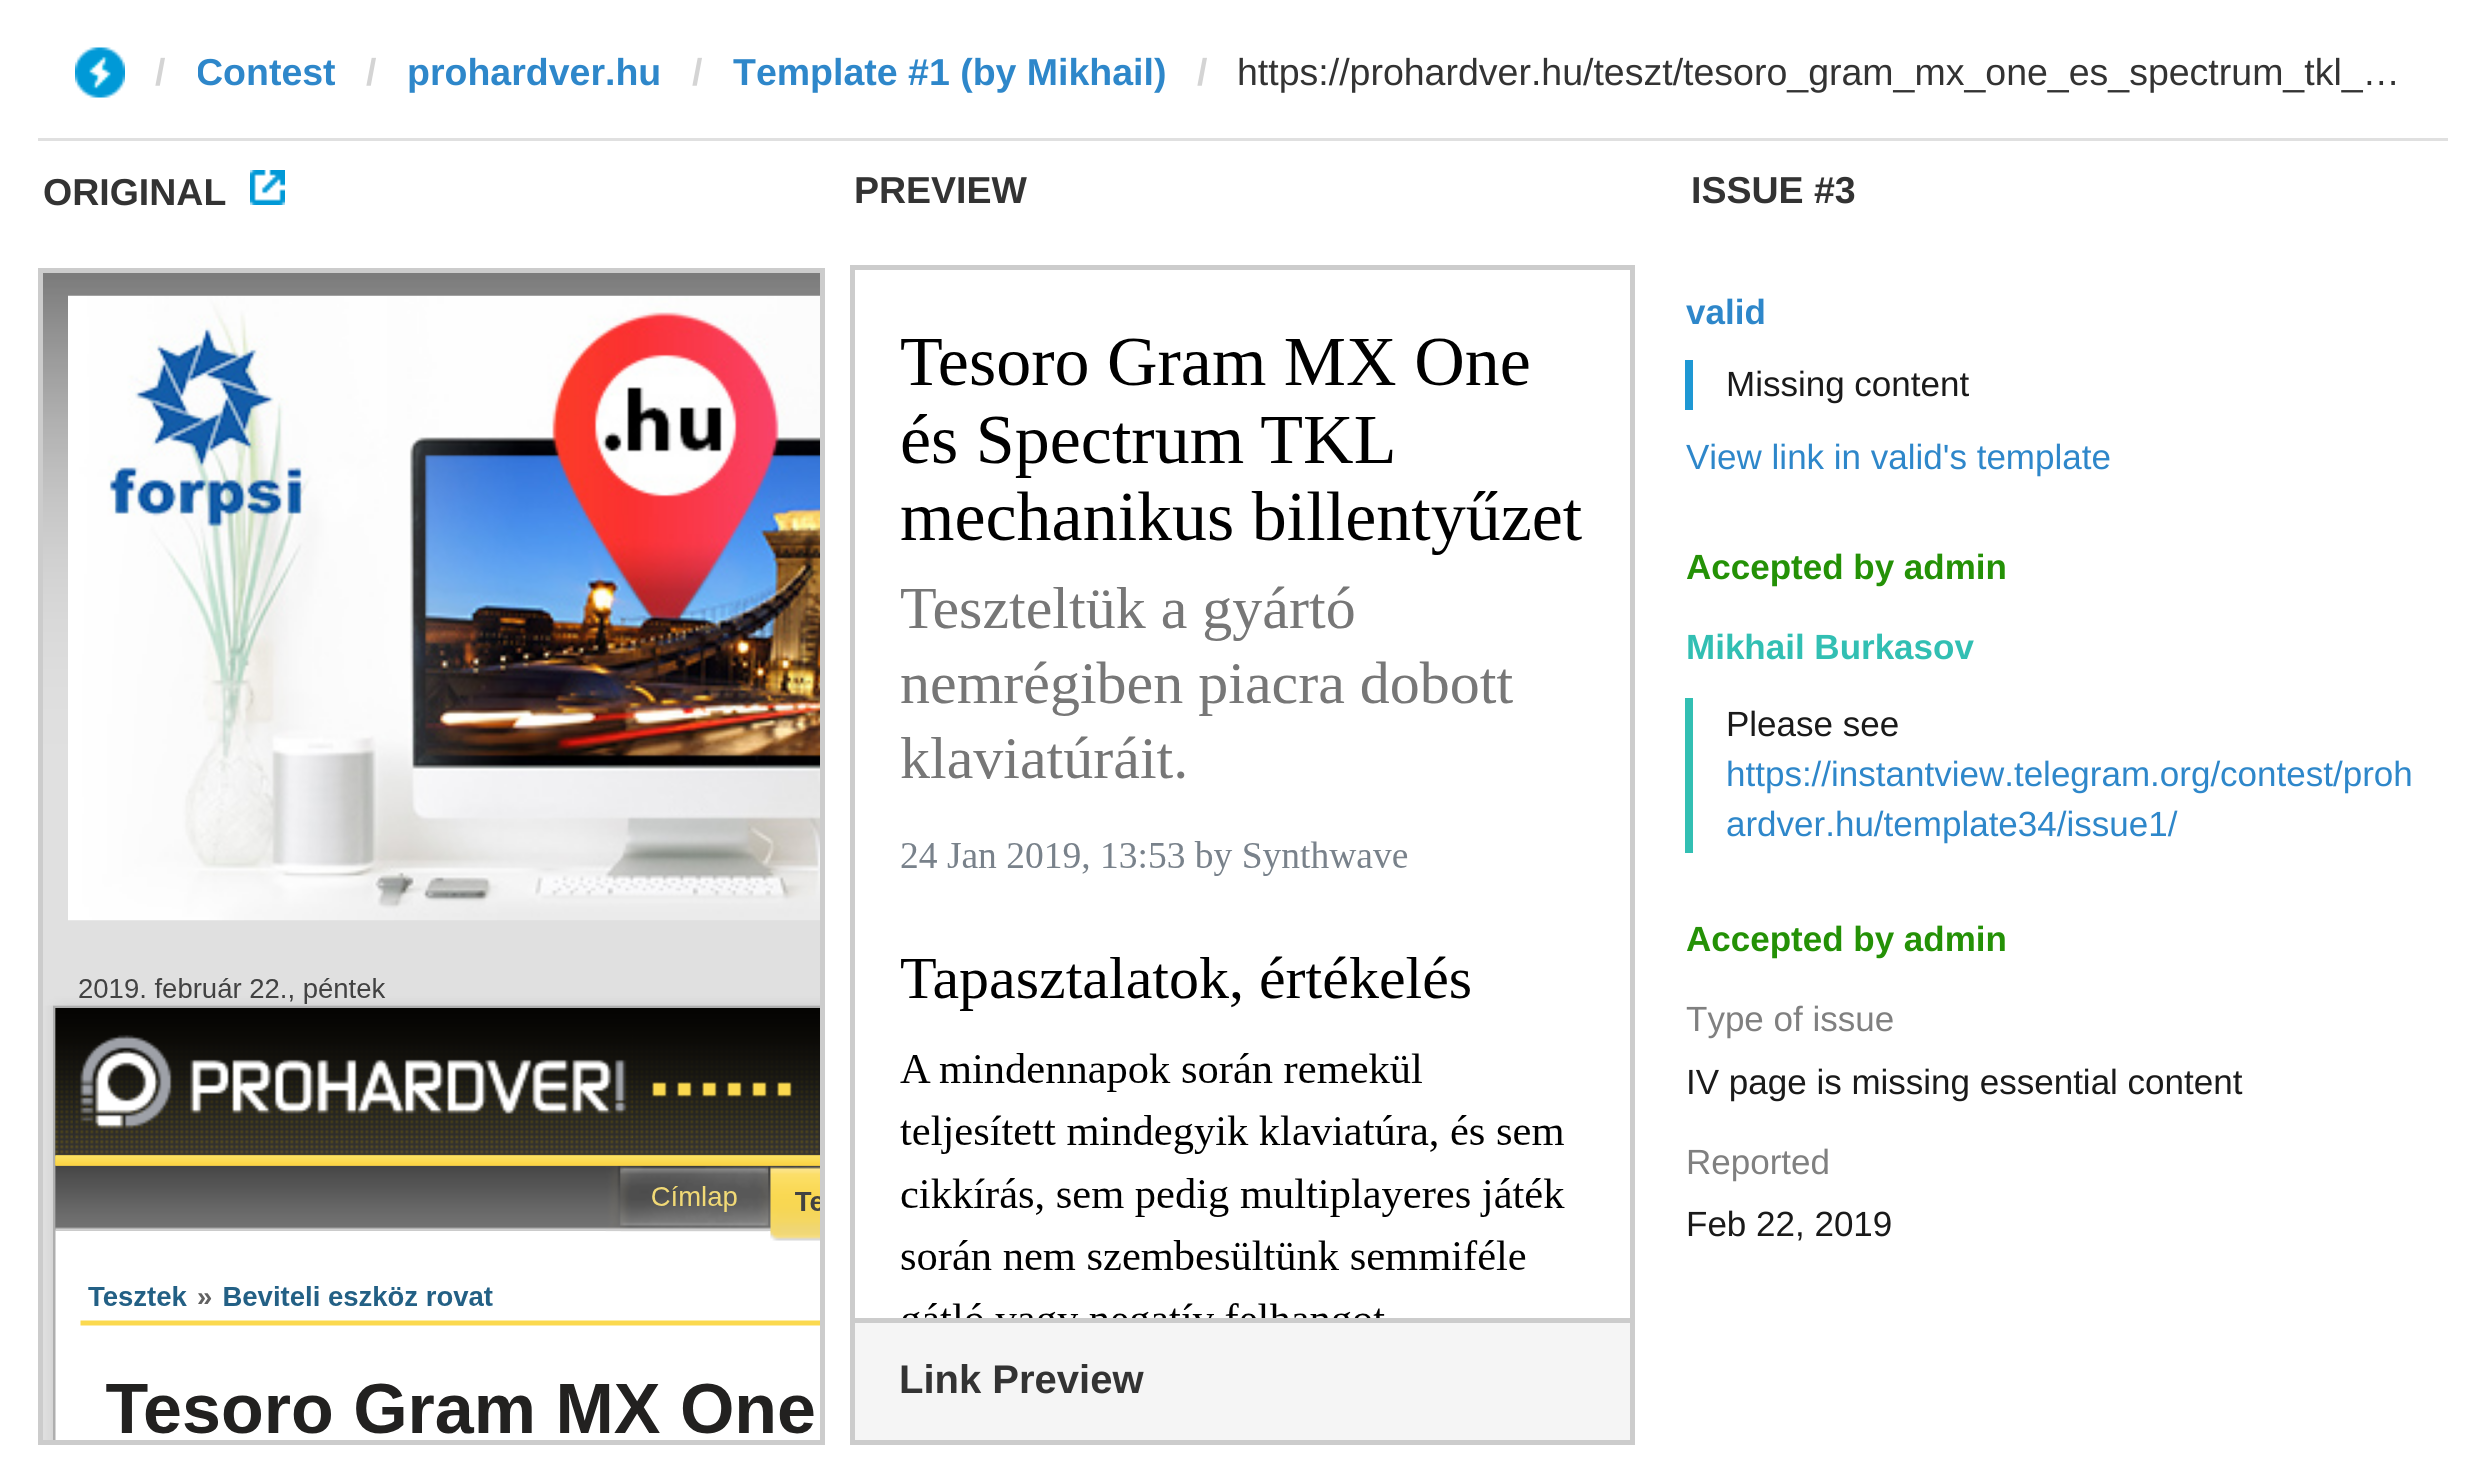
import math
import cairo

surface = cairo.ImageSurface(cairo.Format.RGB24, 2484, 1468)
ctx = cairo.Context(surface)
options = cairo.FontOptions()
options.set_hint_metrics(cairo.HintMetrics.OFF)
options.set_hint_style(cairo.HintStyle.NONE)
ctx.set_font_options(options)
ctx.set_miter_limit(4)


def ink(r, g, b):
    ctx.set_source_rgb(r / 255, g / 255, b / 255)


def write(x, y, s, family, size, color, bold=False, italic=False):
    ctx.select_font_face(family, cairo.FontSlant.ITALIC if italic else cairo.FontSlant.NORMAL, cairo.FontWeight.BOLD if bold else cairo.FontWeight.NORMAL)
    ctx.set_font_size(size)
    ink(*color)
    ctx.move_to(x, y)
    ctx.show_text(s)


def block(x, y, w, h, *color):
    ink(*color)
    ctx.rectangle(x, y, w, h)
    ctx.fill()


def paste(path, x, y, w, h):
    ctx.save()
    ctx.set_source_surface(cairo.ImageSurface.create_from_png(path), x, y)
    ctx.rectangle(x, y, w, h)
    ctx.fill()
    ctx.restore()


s1 = dict(family="Liberation Sans", size=37.5, color=(212, 212, 212), bold=True)
s2 = dict(family="Liberation Sans", size=37.5, color=(46, 135, 202), bold=True)
s3 = dict(family="Liberation Sans", size=37.5, color=(51, 51, 51))
s4 = dict(family="Liberation Sans", size=37.5, color=(51, 51, 51), bold=True)
s5 = dict(family="Liberation Sans", size=40, color=(51, 51, 51), bold=True)
s6 = dict(family="Liberation Sans", size=35, color=(46, 135, 202), bold=True)
s7 = dict(family="Liberation Sans", size=35, color=(26, 26, 26))
s8 = dict(family="Liberation Sans", size=35, color=(46, 135, 202))
s9 = dict(family="Liberation Sans", size=35, color=(36, 145, 6), bold=True)
s10 = dict(family="Liberation Sans", size=35, color=(50, 191, 179), bold=True)
s11 = dict(family="Liberation Sans", size=35, color=(128, 128, 128))

ink(255, 255, 255)
ctx.paint()
block(38, 138, 2410, 3, 224, 224, 224)
paste("pic1.png", 75, 47, 50, 51)
write(155, 85, "/", **s1)
ctx.save()
ctx.rectangle(198, 48, 137, 50)
ctx.clip()
write(196, 85, "Contest", **s2)
ctx.restore()
write(366, 85, "/", **s1)
write(407, 85, "prohardver.hu", **s2)
write(692, 85, "/", **s1)
write(733, 85, "Template #1 (by Mikhail)", **s2)
write(1197, 85, "/", **s1)
write(1237, 85, "https://prohardver.hu/teszt/tesoro_gram_mx_one_es_spectrum_tkl_…", **s3)
write(43, 205, "ORIGINAL", **s4)
paste("pic2.png", 250, 170, 35, 35)
ctx.rectangle(40.5, 270.5, 782, 1172)
ink(204, 204, 204)
ctx.set_line_width(5)
ctx.stroke()
paste("pic3.png", 43, 273, 777, 1167)
write(854, 203, "PREVIEW", **s4)
ctx.rectangle(852.5, 267.5, 780, 1175)
ink(204, 204, 204)
ctx.stroke()
paste("pic4.png", 900, 338, 682, 980)
block(855, 1318, 775, 5, 204, 204, 204)
block(855, 1323, 775, 117, 245, 245, 245)
write(899, 1393, "Link Preview", **s5)
write(1691, 203, "ISSUE #3", **s4)
write(1686, 324, "valid", **s6)
block(1685, 360, 8, 50, 30, 152, 212)
write(1726, 396, "Missing content", **s7)
write(1686, 469, "View link in valid's template", **s8)
write(1686, 579, "Accepted by admin", **s9)
write(1686, 659, "Mikhail Burkasov", **s10)
block(1685, 698, 8, 155, 50, 191, 179)
write(1726, 736, "Please see", **s7)
write(1726, 786, "https://instantview.telegram.org/contest/proh", **s8)
write(1726, 836, "ardver.hu/template34/issue1/", **s8)
write(1686, 951, "Accepted by admin", **s9)
write(1686, 1031, "Type of issue", **s11)
write(1686, 1094, "IV page is missing essential content", **s7)
write(1686, 1174, "Reported", **s11)
write(1686, 1236, "Feb 22, 2019", **s7)
surface.write_to_png("screenshot.png")
